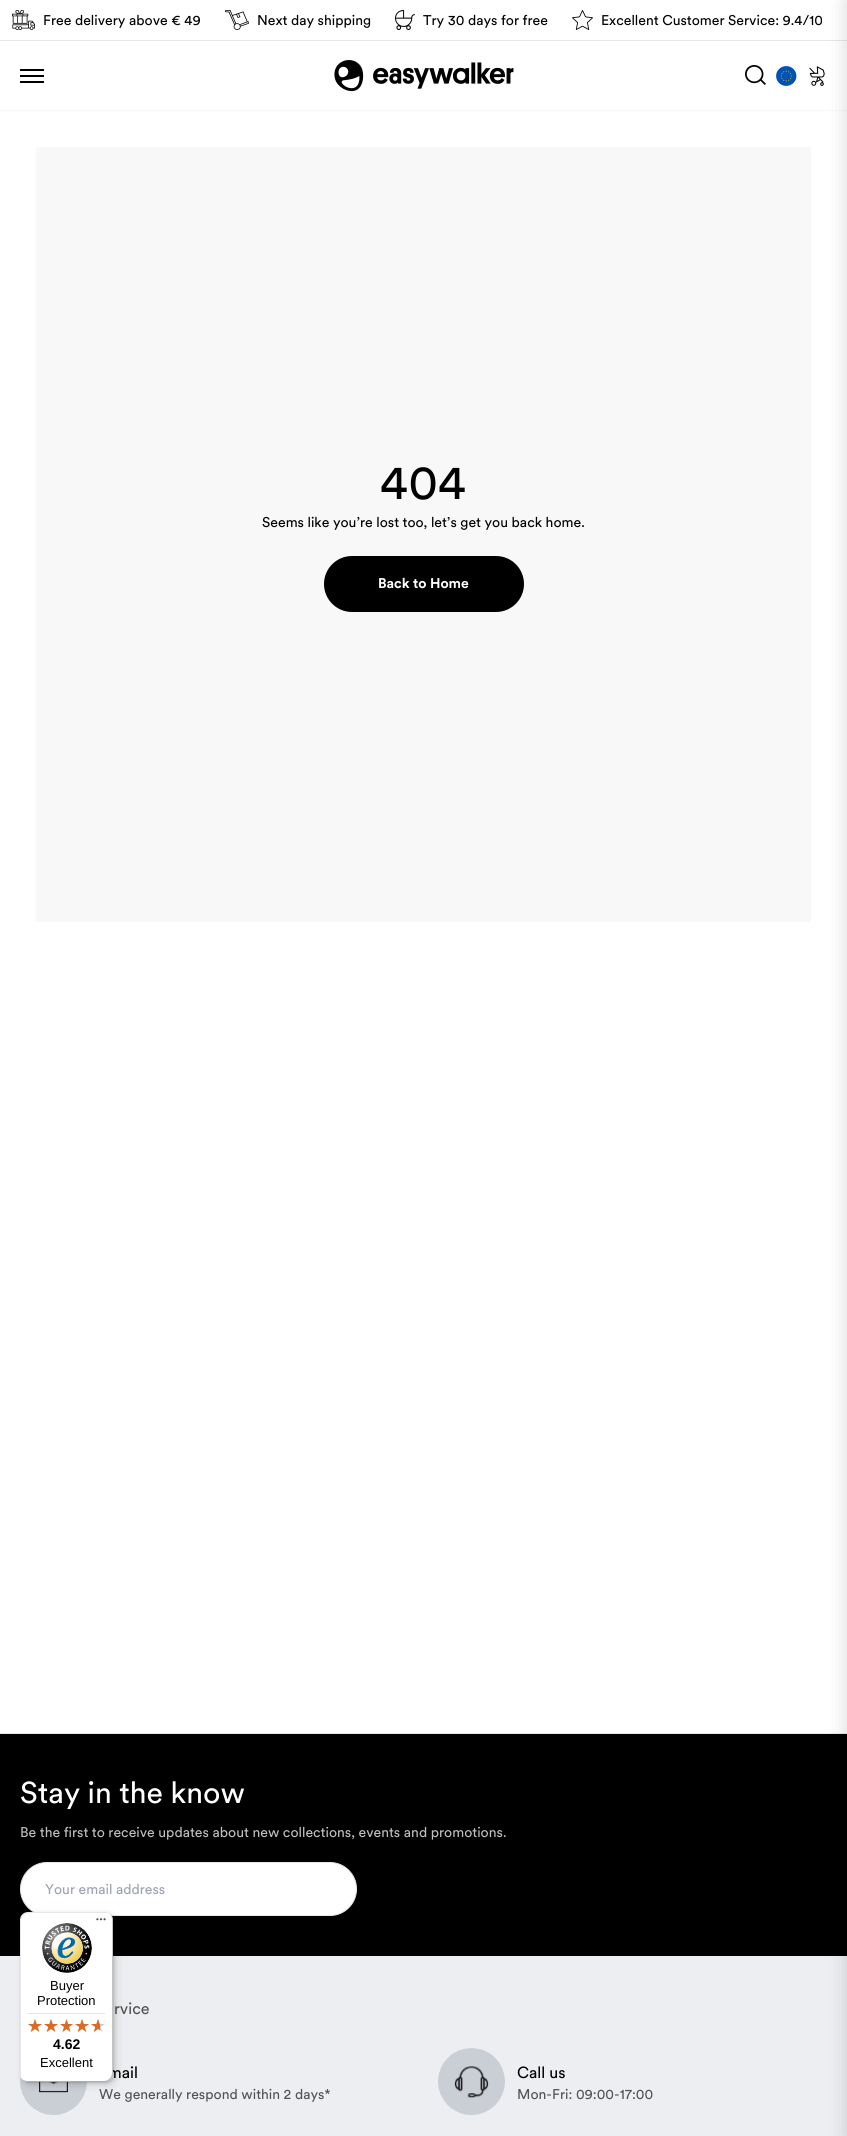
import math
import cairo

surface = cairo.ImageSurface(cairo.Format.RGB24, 847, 2136)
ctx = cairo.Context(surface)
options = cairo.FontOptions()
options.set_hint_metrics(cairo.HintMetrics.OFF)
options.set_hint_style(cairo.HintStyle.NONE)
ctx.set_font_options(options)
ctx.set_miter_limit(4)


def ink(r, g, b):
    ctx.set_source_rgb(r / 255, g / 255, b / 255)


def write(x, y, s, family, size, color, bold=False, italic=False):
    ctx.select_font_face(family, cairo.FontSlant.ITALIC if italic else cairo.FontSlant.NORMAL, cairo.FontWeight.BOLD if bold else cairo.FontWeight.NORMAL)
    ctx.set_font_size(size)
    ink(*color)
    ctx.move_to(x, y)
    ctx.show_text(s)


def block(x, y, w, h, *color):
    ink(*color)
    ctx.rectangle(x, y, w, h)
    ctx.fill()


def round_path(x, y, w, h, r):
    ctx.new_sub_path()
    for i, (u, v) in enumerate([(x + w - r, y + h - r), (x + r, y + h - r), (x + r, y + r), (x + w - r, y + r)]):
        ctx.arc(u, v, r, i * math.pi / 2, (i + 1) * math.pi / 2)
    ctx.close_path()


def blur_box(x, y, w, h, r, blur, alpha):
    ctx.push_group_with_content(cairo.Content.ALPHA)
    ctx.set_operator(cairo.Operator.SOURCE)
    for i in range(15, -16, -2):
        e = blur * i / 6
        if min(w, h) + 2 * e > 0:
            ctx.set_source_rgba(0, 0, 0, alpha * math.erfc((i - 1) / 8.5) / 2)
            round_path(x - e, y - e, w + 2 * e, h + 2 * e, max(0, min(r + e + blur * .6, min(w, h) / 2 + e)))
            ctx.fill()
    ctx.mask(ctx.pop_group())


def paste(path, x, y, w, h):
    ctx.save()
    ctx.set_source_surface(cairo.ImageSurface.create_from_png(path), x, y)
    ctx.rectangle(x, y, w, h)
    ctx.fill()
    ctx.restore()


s1 = dict(family="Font", size=14, color=(0, 0, 0))
s2 = dict(family="Font", size=48, color=(0, 0, 0))
s3 = dict(family="Circular", size=14, color=(255, 255, 255), bold=True)
s4 = dict(family="Font", size=30, color=(255, 255, 255))
s5 = dict(family="Font", size=14, color=(191, 191, 191))
s6 = dict(family="Font", size=14, color=(156, 163, 175))
s7 = dict(family="Font", size=16, color=(82, 82, 82))
s8 = dict(family="Font", size=16, color=(0, 0, 0))
s9 = dict(family="Font", size=14, color=(82, 82, 82))
s10 = dict(family="Liberation Sans", size=13, color=(0, 0, 0))
s11 = dict(family="Liberation Sans", size=14, color=(0, 0, 0), bold=True)

ink(255, 255, 255)
ctx.paint()
block(0, 40, 847, 1, 229, 231, 235)
paste("pic1.png", 12, 10, 23, 20)
write(43, 25, "Free delivery above € 49", **s1)
paste("pic2.png", 225, 10, 24, 20)
write(257, 25, "Next day shipping", **s1)
paste("pic3.png", 395, 10, 20, 20)
write(423, 25, "Try 30 days for free", **s1)
paste("pic4.png", 572, 10, 21, 20)
write(601, 25, "Excellent Customer Service: 9.4/10", **s1)
block(0, 110, 847, 1, 248, 248, 248)
paste("pic8.png", 809, 66, 16, 20)
block(0, 1733, 847, 1, 229, 231, 235)
block(0, 1734, 847, 222, 0, 0, 0)
block(0, 1956, 847, 180, 237, 238, 241)
ink(0, 0, 0)
blur_box(847, 2, 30, 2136, 0, 10, 0.16)
block(20, 69, 24, 2, 0, 0, 0)
block(20, 75, 24, 2, 0, 0, 0)
block(20, 81, 24, 2, 0, 0, 0)
paste("pic5.png", 334, 60, 180, 32)
paste("pic6.png", 745, 65, 21, 20)
paste("pic7.png", 776, 66, 21, 20)
block(36, 147, 775, 775, 248, 248, 248)
write(380, 499, "404", **s2)
write(262, 527, "Seems like you’re lost too, let’s get you back home.", **s1)
round_path(324, 556, 200, 56, 28)
ctx.fill()
write(378, 588, "Back to Home", **s3)
write(20, 1803, "Stay in the know", **s4)
write(20, 1837, "Be the first to receive updates about new collections, events and promotions.", **s5)
ink(255, 255, 255)
round_path(20.5, 1862.5, 336, 53, 26.5)
ctx.fill_preserve()
ink(229, 231, 235)
ctx.set_line_width(1)
ctx.stroke()
write(45, 1894, "Your email address", **s6)
write(114, 2014, "rvice", **s7)
paste("pic9.png", 20, 2074, 67, 41)
write(108, 2078, "mail", **s8)
write(99, 2099, "We generally respond within 2 days*", **s9)
paste("pic10.png", 438, 2048, 67, 67)
write(517, 2078, "Call us", **s8)
write(517, 2099, "Mon-Fri: 09:00-17:00", **s9)
ink(0, 0, 0)
blur_box(23, 1915, 93, 170, 8, 4, 0.15)
blur_box(21, 1913, 93, 170, 8, 1, 0.15)
ink(255, 255, 255)
round_path(20, 1912, 93, 170, 8)
ctx.fill()
ctx.set_source_rgba(0, 0, 0, 0.1)
ctx.new_path()
ctx.move_to(29, 1913)
ctx.line_to(106, 1913)
ctx.curve_to(108, 1913, 110, 1914, 112, 1916)
ctx.curve_to(110, 1914, 108, 1912, 105, 1912)
ctx.line_to(28, 1912)
ctx.curve_to(24, 1912, 20, 1916, 20, 1920)
ctx.line_to(20, 2074)
ctx.curve_to(20, 2077, 22, 2079, 24, 2081)
ctx.curve_to(22, 2079, 21, 2077, 21, 2075)
ctx.line_to(21, 1921)
ctx.curve_to(21, 1917, 25, 1913, 29, 1913)
ctx.close_path()
ctx.fill()
ctx.set_source_rgba(0, 0, 0, 0.2)
ctx.new_path()
ctx.move_to(21, 2078)
ctx.curve_to(23, 2080, 25, 2082, 28, 2082)
ctx.line_to(105, 2082)
ctx.curve_to(109, 2082, 113, 2078, 113, 2074)
ctx.line_to(113, 1920)
ctx.curve_to(113, 1917, 111, 1915, 109, 1913)
ctx.curve_to(111, 1915, 112, 1917, 112, 1919)
ctx.line_to(112, 2073)
ctx.curve_to(112, 2077, 108, 2081, 104, 2081)
ctx.line_to(27, 2081)
ctx.curve_to(25, 2081, 23, 2080, 21, 2078)
ctx.close_path()
ctx.fill()
ctx.set_source_rgba(0.196, 0.196, 0.196, 0.2)
ctx.new_path()
ctx.move_to(22, 2079)
ctx.curve_to(23, 2081, 26, 2082, 28, 2082)
ctx.line_to(105, 2082)
ctx.curve_to(109, 2082, 113, 2078, 113, 2074)
ctx.line_to(113, 1920)
ctx.curve_to(113, 1918, 112, 1915, 110, 1914)
ctx.curve_to(111, 1915, 112, 1917, 112, 1919)
ctx.line_to(112, 2073)
ctx.curve_to(112, 2078, 109, 2081, 104, 2081)
ctx.line_to(27, 2081)
ctx.curve_to(25, 2081, 23, 2080, 22, 2079)
ctx.close_path()
ctx.fill()
ctx.set_source_rgba(1, 1, 1, 0.3)
ctx.new_path()
ctx.move_to(104, 2082)
ctx.line_to(105, 2082)
ctx.curve_to(109, 2082, 113, 2078, 113, 2074)
ctx.line_to(113, 1920)
ctx.curve_to(113, 1916, 109, 1912, 105, 1912)
ctx.line_to(104, 1912)
ctx.curve_to(109, 1912, 112, 1915, 112, 1920)
ctx.line_to(112, 2074)
ctx.curve_to(112, 2078, 109, 2082, 104, 2082)
ctx.close_path()
ctx.fill()
paste("pic11.png", 96, 1918, 10, 3)
paste("pic12.png", 42, 1923, 50, 50)
write(50, 1990, "Buyer", **s10)
write(37, 2005, "Protection", **s10)
block(28, 2013, 77, 1, 229, 229, 229)
paste("pic13.png", 28, 2019, 14, 13)
paste("pic13.png", 44, 2019, 14, 13)
paste("pic14.png", 60, 2019, 13, 13)
paste("pic13.png", 75, 2019, 14, 13)
paste("pic13.png", 91, 2019, 14, 13)
paste("pic15.png", 28, 2019, 14, 13)
paste("pic15.png", 44, 2019, 14, 13)
paste("pic16.png", 60, 2019, 13, 13)
paste("pic15.png", 75, 2019, 14, 13)
paste("pic17.png", 91, 2019, 9, 13)
write(53, 2049, "4.62", **s11)
write(40, 2067, "Excellent", **s10)
surface.write_to_png("screenshot.png")
